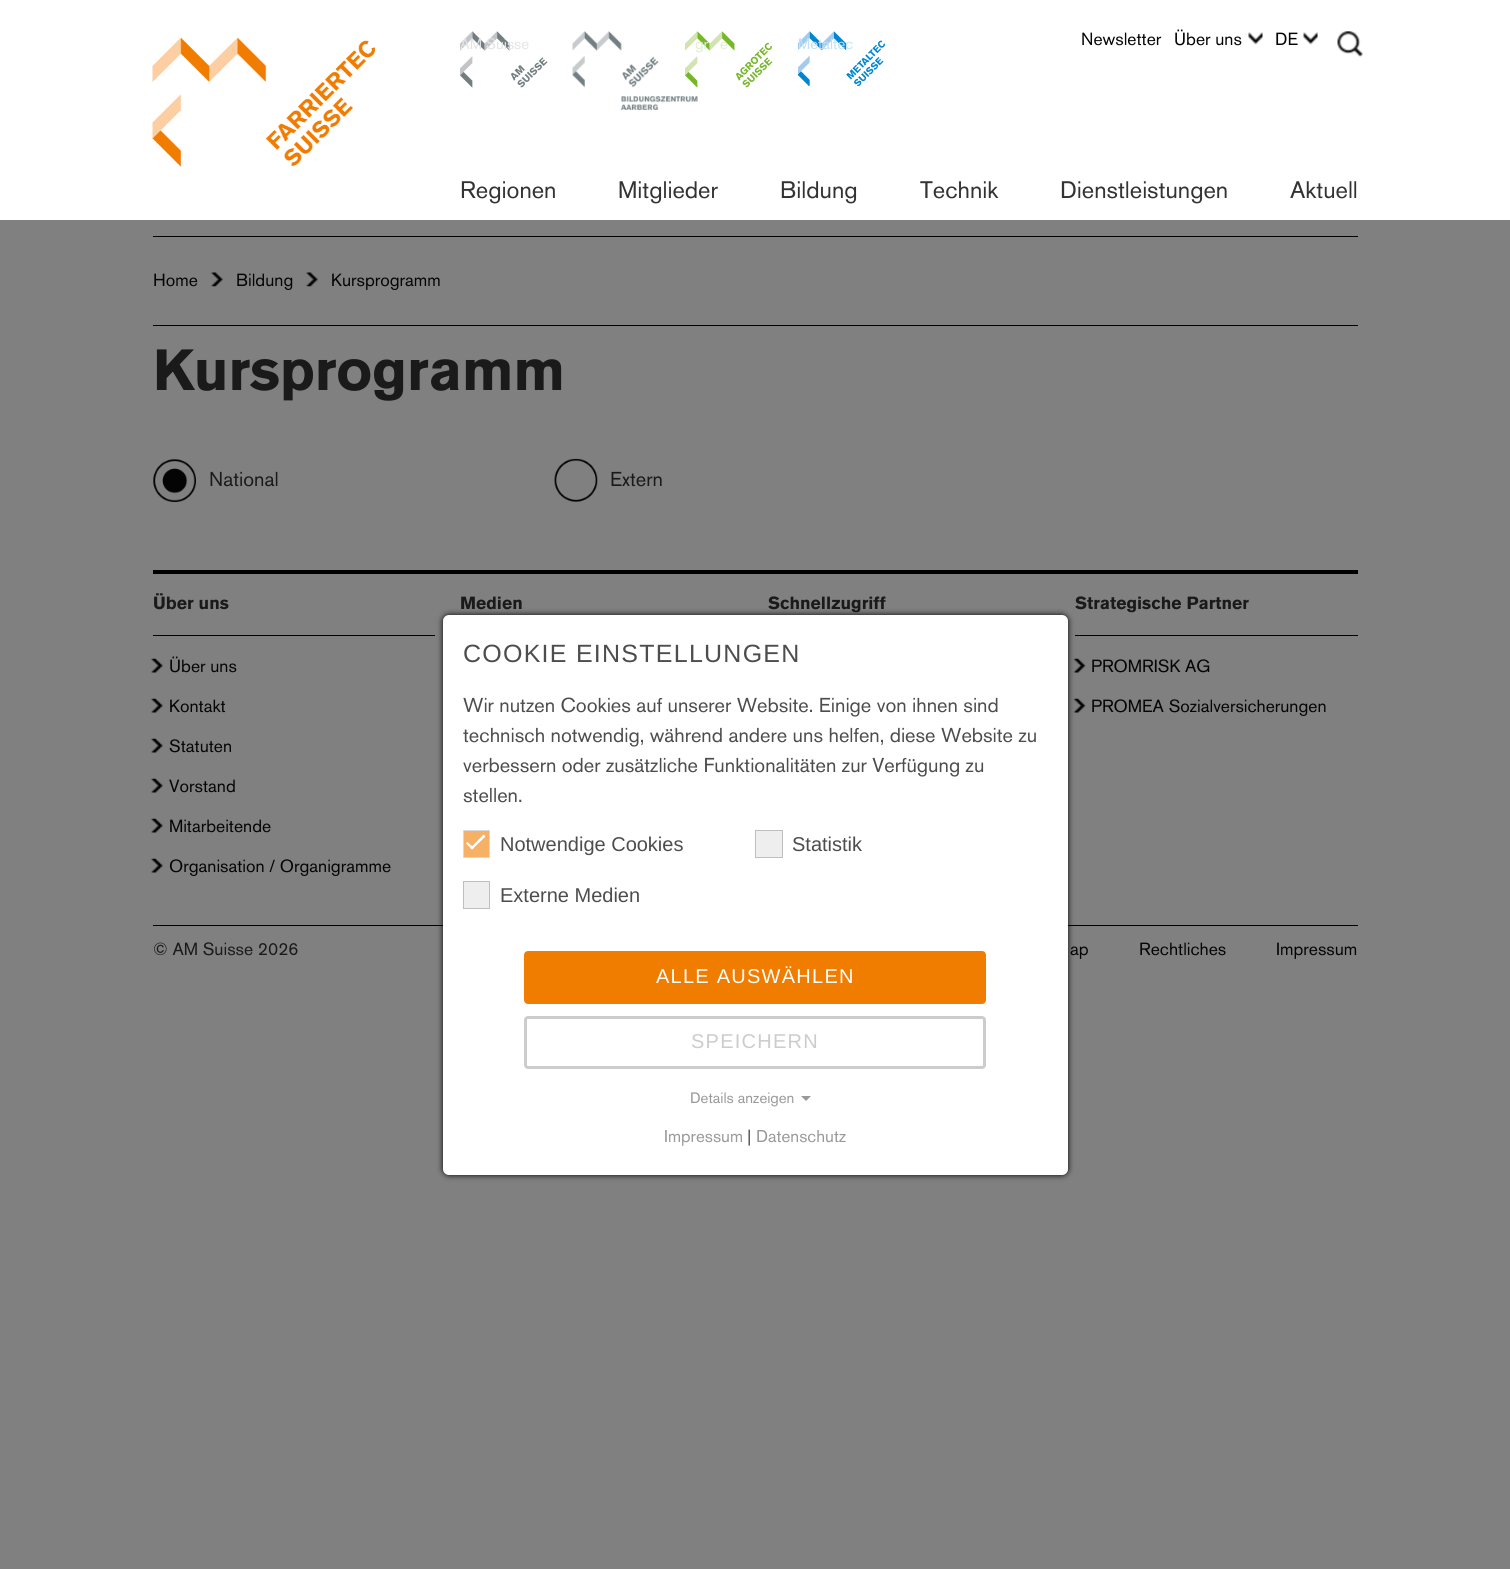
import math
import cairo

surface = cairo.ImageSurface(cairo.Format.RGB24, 1510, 1569)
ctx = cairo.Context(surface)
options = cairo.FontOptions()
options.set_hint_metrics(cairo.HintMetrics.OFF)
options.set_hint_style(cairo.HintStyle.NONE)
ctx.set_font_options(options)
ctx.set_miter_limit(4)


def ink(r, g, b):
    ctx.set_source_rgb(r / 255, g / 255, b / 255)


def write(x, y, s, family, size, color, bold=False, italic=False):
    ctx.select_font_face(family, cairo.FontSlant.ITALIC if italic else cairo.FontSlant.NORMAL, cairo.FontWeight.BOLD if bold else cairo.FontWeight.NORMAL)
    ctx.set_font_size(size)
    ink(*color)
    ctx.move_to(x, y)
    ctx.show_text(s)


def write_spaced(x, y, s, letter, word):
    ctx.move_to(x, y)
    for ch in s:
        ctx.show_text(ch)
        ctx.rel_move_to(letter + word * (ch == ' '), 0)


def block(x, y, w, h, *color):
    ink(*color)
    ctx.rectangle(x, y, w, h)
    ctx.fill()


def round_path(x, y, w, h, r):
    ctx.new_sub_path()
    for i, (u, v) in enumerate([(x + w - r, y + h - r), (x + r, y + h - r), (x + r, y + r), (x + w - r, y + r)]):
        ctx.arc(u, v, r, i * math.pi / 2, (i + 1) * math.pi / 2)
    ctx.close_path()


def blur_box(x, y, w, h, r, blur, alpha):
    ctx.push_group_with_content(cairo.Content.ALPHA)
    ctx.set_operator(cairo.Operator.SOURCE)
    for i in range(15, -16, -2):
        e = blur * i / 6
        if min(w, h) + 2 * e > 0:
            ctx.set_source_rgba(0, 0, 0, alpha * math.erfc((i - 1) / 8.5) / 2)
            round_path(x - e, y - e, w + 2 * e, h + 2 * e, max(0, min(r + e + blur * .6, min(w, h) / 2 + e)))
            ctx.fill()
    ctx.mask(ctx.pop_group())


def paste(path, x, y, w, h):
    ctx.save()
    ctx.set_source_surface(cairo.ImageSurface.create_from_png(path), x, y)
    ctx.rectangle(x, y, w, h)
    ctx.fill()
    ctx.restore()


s1 = dict(family="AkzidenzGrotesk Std", size=15, color=(226, 228, 229))
s2 = dict(family="AkzidenzGrotesk Std", size=15, color=(224, 238, 205))
s3 = dict(family="AkzidenzGrotesk Std", size=15, color=(195, 225, 244))
s4 = dict(family="AkzidenzGrotesk Std", size=17.5, color=(5, 5, 5))
s5 = dict(family="AkzidenzGrotesk Std", size=23.75, color=(51, 51, 51))
s6 = dict(family="AkzidenzGrotesk Std", size=57.5, color=(26, 26, 26), bold=True)
s7 = dict(family="AkzidenzGrotesk Std", size=20, color=(26, 26, 26))
s8 = dict(family="AkzidenzGrotesk Std", size=17.5, color=(26, 26, 26), bold=True)
s9 = dict(family="AkzidenzGrotesk Std", size=17.5, color=(26, 26, 26))
s10 = dict(family="AkzidenzGrotesk Std", size=20, color=(77, 77, 77))
s11 = dict(family="Liberation Sans", size=20, color=(77, 77, 77))
s12 = dict(family="AkzidenzGrotesk Std", size=15, color=(153, 153, 153))
s13 = dict(family="AkzidenzGrotesk Std", size=17, color=(153, 153, 153))
s14 = dict(family="Liberation Sans", size=17, color=(77, 77, 77))

ink(255, 255, 255)
ctx.paint()
block(0, 220, 1510, 1349, 128, 128, 128)
paste("pic1.png", 152, 37, 224, 130)
paste("pic2.png", 460, 31, 88, 57)
write(460, 49, "AM Suisse", **s1)
paste("pic3.png", 572, 31, 126, 79)
paste("pic4.png", 685, 31, 88, 57)
write(695, 49, "gr", **s2)
write(720, 49, "e", **s2)
paste("pic5.png", 798, 31, 87, 55)
write(798, 49, "Metaltec", **s3)
write(1081, 45, "Newsletter", **s4)
write(1174, 45, "Über uns", **s4)
paste("pic6.png", 1248, 32, 15, 13)
write(1275, 45, "DE", **s4)
paste("pic6.png", 1303, 32, 15, 13)
paste("pic7.png", 1337, 31, 26, 26)
write(460, 198, "Regionen", **s5)
write(618, 198, "Mitglieder", **s5)
write(780, 198, "Bildung", **s5)
write(920, 198, "Technik", **s5)
write(1060, 198, "Dienstleistungen", **s5)
write(1290, 198, "Aktuell", **s5)
block(153, 236, 1205, 1, 0, 0, 0)
write(153, 286, "Home", **s4)
paste("pic8.png", 211, 272, 12, 15)
write(236, 286, "Bildung", **s4)
paste("pic8.png", 306, 272, 12, 15)
write(331, 286, "Kursprogramm", **s4)
block(153, 325, 1205, 1, 0, 0, 0)
write(153, 390, "Kursprogramm", **s6)
paste("pic9.png", 153, 459, 43, 43)
write(209, 486, "National", **s7)
paste("pic10.png", 554, 458, 44, 44)
write(610, 486, "Extern", **s7)
block(153, 570, 1205, 4, 0, 0, 0)
write(153, 609, "Über uns", **s8)
block(153, 635, 282, 1, 0, 0, 0)
paste("pic11.png", 151, 658, 12, 15)
write(169, 672, "Über uns", **s4)
paste("pic11.png", 151, 698, 12, 15)
write(169, 712, "Kontakt", **s4)
paste("pic11.png", 151, 738, 12, 15)
write(169, 752, "Statuten", **s4)
paste("pic12.png", 151, 778, 12, 15)
write(169, 792, "Vorstand", **s4)
paste("pic11.png", 151, 818, 12, 15)
write(169, 832, "Mitarbeitende", **s4)
paste("pic11.png", 151, 858, 12, 15)
write(169, 872, "Organisation / Organigramme", **s4)
write(460, 609, "Medien", **s8)
write(768, 609, "Schnellzugriff", **s8)
write(1075, 609, "Strategische Partner", **s8)
block(1075, 635, 283, 1, 0, 0, 0)
paste("pic13.png", 1073, 658, 13, 15)
write(1091, 672, "PROMRISK AG", **s4)
paste("pic13.png", 1073, 698, 13, 15)
write(1091, 712, "PROMEA Sozialversicherungen", **s4)
block(153, 925, 1205, 1, 0, 0, 0)
write(153, 955, "© AM Suisse 2026", **s9)
write(1070, 955, "ap", **s4)
write(1139, 955, "Rechtliches", **s4)
write(1276, 955, "Impressum", **s4)
ink(0, 0, 0)
blur_box(443, 615, 625, 560, 6, 3, 1)
ink(255, 255, 255)
round_path(443, 615, 625, 560, 6)
ctx.fill()
ctx.select_font_face("Liberation Sans")
ctx.set_font_size(25)
ink(77, 77, 77)
write_spaced(463, 662, "COOKIE EINSTELLUNGEN", 1.25, 0)
write(463, 712, "Wir nutzen Cookies auf unserer Website. Einige von ihnen sind", **s10)
write(463, 742, "technisch notwendig, während andere uns helfen, diese Website zu", **s10)
write(463, 772, "verbessern oder zusätzliche Funktionalitäten zur Verfügung zu", **s10)
write(463, 802, "stellen.", **s10)
ink(246, 177, 102)
ctx.rectangle(463.5, 830.5, 26, 27)
ctx.fill_preserve()
ink(217, 217, 217)
ctx.set_line_width(1)
ctx.stroke()
ink(255, 255, 255)
ctx.new_path()
ctx.move_to(483.5, 834.5)
ctx.line_to(485.5, 836.5)
ctx.line_to(472, 849.5)
ctx.line_to(470.5, 848)
ctx.close_path()
ctx.fill()
ctx.new_path()
ctx.move_to(467.5, 842)
ctx.line_to(474, 848)
ctx.line_to(472, 849.5)
ctx.line_to(466, 843.5)
ctx.close_path()
ctx.fill()
write(500, 851, "Notwendige Cookies", **s11)
ink(238, 238, 238)
ctx.rectangle(755.5, 830.5, 27, 27)
ctx.fill_preserve()
ink(191, 191, 191)
ctx.stroke()
write(792, 851, "Statistik", **s11)
ink(238, 238, 238)
ctx.rectangle(463.5, 881.5, 26, 27)
ctx.fill_preserve()
ink(191, 191, 191)
ctx.stroke()
write(500, 902, "Externe Medien", **s11)
ink(240, 125, 0)
round_path(525.5, 952.5, 459, 50, 2.5)
ctx.fill_preserve()
ctx.set_line_width(3)
ctx.stroke()
ink(255, 255, 255)
write_spaced(656, 983, "ALLE AUSWÄHLEN", 1.25, 0)
round_path(525.5, 1017.5, 459, 50, 2.5)
ink(204, 204, 204)
ctx.stroke()
write_spaced(691, 1048, "SPEICHERN", 1.25, 0)
write(690, 1103, "Details anzeigen", **s12)
ctx.new_path()
ctx.move_to(801, 1096)
ctx.line_to(811, 1096)
ctx.line_to(806, 1101)
ctx.close_path()
ctx.fill()
write(664, 1142, "Impressum", **s13)
write(747, 1142, "|", **s14)
write(756, 1142, "Datenschutz", **s13)
surface.write_to_png("screenshot.png")
